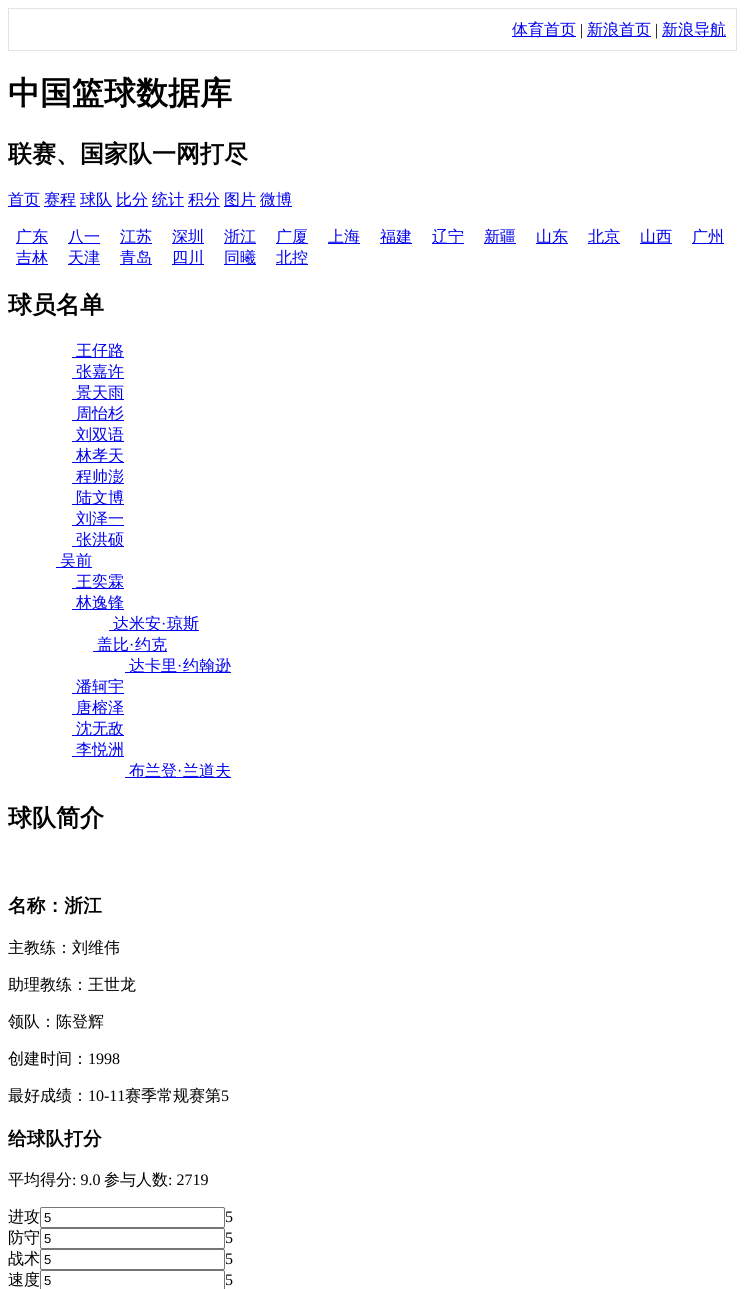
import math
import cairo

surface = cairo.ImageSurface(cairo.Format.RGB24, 745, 1289)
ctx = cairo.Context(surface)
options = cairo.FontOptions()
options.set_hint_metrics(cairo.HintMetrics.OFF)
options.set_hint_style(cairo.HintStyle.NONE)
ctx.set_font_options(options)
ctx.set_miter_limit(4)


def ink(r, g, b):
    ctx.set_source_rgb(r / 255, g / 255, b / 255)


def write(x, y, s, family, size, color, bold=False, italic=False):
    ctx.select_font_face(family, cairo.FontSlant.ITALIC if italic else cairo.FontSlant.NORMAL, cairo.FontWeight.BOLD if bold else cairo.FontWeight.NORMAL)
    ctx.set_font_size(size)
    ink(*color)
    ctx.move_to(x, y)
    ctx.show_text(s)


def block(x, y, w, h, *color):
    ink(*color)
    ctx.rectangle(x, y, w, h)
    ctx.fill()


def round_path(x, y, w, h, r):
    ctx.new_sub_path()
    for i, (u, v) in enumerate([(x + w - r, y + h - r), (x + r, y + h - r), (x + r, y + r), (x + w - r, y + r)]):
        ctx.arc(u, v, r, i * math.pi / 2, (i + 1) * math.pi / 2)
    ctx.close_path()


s1 = dict(family="WenQuanYi Zen Hei Medium", size=16, color=(0, 0, 238))
s2 = dict(family="Liberation Serif", size=16, color=(0, 0, 0))
s3 = dict(family="WenQuanYi Zen Hei", size=32, color=(0, 0, 0), bold=True)
s4 = dict(family="WenQuanYi Zen Hei", size=24, color=(0, 0, 0), bold=True)
s5 = dict(family="Liberation Serif", size=16, color=(0, 0, 238))
s6 = dict(family="WenQuanYi Zen Hei", size=18.75, color=(0, 0, 0), bold=True)
s7 = dict(family="WenQuanYi Zen Hei Medium", size=16, color=(0, 0, 0))
s8 = dict(family="Liberation Sans", size=13, color=(0, 0, 0))

ink(255, 255, 255)
ctx.paint()
ctx.rectangle(8.5, 8.5, 728, 42)
ink(227, 227, 227)
ctx.set_line_width(1)
ctx.stroke()
block(512, 36, 64, 1, 0, 0, 238)
write(512, 35, "体育首页", **s1)
write(580, 35, "|", **s2)
block(587, 36, 64, 1, 0, 0, 238)
write(587, 35, "新浪首页", **s1)
write(655, 35, "|", **s2)
block(662, 36, 64, 1, 0, 0, 238)
write(662, 35, "新浪导航", **s1)
write(8, 104, "中国篮球数据库", **s3)
write(8, 162, "联赛、国家队一网打尽", **s4)
block(8, 206, 32, 1, 0, 0, 238)
write(8, 205, "首页", **s1)
block(44, 206, 32, 1, 0, 0, 238)
write(44, 205, "赛程", **s1)
block(80, 206, 32, 1, 0, 0, 238)
write(80, 205, "球队", **s1)
block(116, 206, 32, 1, 0, 0, 238)
write(116, 205, "比分", **s1)
block(152, 206, 32, 1, 0, 0, 238)
write(152, 205, "统计", **s1)
block(188, 206, 32, 1, 0, 0, 238)
write(188, 205, "积分", **s1)
block(224, 206, 32, 1, 0, 0, 238)
write(224, 205, "图片", **s1)
block(260, 206, 32, 1, 0, 0, 238)
write(260, 205, "微博", **s1)
block(16, 243, 32, 1, 0, 0, 238)
write(16, 242, "广东", **s1)
block(68, 243, 32, 1, 0, 0, 238)
write(68, 242, "八一", **s1)
block(120, 243, 32, 1, 0, 0, 238)
write(120, 242, "江苏", **s1)
block(172, 243, 32, 1, 0, 0, 238)
write(172, 242, "深圳", **s1)
block(224, 243, 32, 1, 0, 0, 238)
write(224, 242, "浙江", **s1)
block(276, 243, 32, 1, 0, 0, 238)
write(276, 242, "广厦", **s1)
block(328, 243, 32, 1, 0, 0, 238)
write(328, 242, "上海", **s1)
block(380, 243, 32, 1, 0, 0, 238)
write(380, 242, "福建", **s1)
block(432, 243, 32, 1, 0, 0, 238)
write(432, 242, "辽宁", **s1)
block(484, 243, 32, 1, 0, 0, 238)
write(484, 242, "新疆", **s1)
block(536, 243, 32, 1, 0, 0, 238)
write(536, 242, "山东", **s1)
block(588, 243, 32, 1, 0, 0, 238)
write(588, 242, "北京", **s1)
block(640, 243, 32, 1, 0, 0, 238)
write(640, 242, "山西", **s1)
block(692, 243, 32, 1, 0, 0, 238)
write(692, 242, "广州", **s1)
block(16, 264, 32, 1, 0, 0, 238)
write(16, 263, "吉林", **s1)
block(68, 264, 32, 1, 0, 0, 238)
write(68, 263, "天津", **s1)
block(120, 264, 32, 1, 0, 0, 238)
write(120, 263, "青岛", **s1)
block(172, 264, 32, 1, 0, 0, 238)
write(172, 263, "四川", **s1)
block(224, 264, 32, 1, 0, 0, 238)
write(224, 263, "同曦", **s1)
block(276, 264, 32, 1, 0, 0, 238)
write(276, 263, "北控", **s1)
write(8, 313, "球员名单", **s4)
block(72, 357, 52, 1, 0, 0, 238)
write(76, 356, "王仔路", **s1)
block(72, 378, 52, 1, 0, 0, 238)
write(76, 377, "张嘉许", **s1)
block(72, 399, 52, 1, 0, 0, 238)
write(76, 398, "景天雨", **s1)
block(72, 420, 52, 1, 0, 0, 238)
write(76, 419, "周怡杉", **s1)
block(72, 441, 52, 1, 0, 0, 238)
write(76, 440, "刘双语", **s1)
block(72, 462, 52, 1, 0, 0, 238)
write(76, 461, "林孝天", **s1)
block(72, 483, 52, 1, 0, 0, 238)
write(76, 482, "程帅澎", **s1)
block(72, 504, 52, 1, 0, 0, 238)
write(76, 503, "陆文博", **s1)
block(72, 525, 52, 1, 0, 0, 238)
write(76, 524, "刘泽一", **s1)
block(72, 546, 52, 1, 0, 0, 238)
write(76, 545, "张洪硕", **s1)
block(56, 567, 36, 1, 0, 0, 238)
write(60, 566, "吴前", **s1)
block(72, 588, 52, 1, 0, 0, 238)
write(76, 587, "王奕霖", **s1)
block(72, 609, 52, 1, 0, 0, 238)
write(76, 608, "林逸锋", **s1)
block(109, 630, 90, 1, 0, 0, 238)
write(113, 629, "达米安", **s1)
write(161, 629, "·", **s5)
write(167, 629, "琼斯", **s1)
block(93, 651, 74, 1, 0, 0, 238)
write(97, 650, "盖比", **s1)
write(129, 650, "·", **s5)
write(135, 650, "约克", **s1)
block(125, 672, 106, 1, 0, 0, 238)
write(129, 671, "达卡里", **s1)
write(177, 671, "·", **s5)
write(183, 671, "约翰逊", **s1)
block(72, 693, 52, 1, 0, 0, 238)
write(76, 692, "潘轲宇", **s1)
block(72, 714, 52, 1, 0, 0, 238)
write(76, 713, "唐榕泽", **s1)
block(72, 735, 52, 1, 0, 0, 238)
write(76, 734, "沈无敌", **s1)
block(72, 756, 52, 1, 0, 0, 238)
write(76, 755, "李悦洲", **s1)
block(125, 777, 106, 1, 0, 0, 238)
write(129, 776, "布兰登", **s1)
write(177, 776, "·", **s5)
write(183, 776, "兰道夫", **s1)
write(8, 826, "球队简介", **s4)
write(8, 912, "名称：浙江", **s6)
write(8, 953, "主教练：刘维伟", **s7)
write(8, 990, "助理教练：王世龙", **s7)
write(8, 1027, "领队：陈登辉", **s7)
write(8, 1064, "创建时间：", **s7)
write(88, 1064, "1998", **s2)
write(8, 1101, "最好成绩：", **s7)
write(88, 1101, "10-11", **s2)
write(125, 1101, "赛季常规赛第", **s7)
write(221, 1101, "5", **s2)
write(8, 1145, "给球队打分", **s6)
write(8, 1185, "平均得分", **s7)
write(72, 1185, ": 9.0", **s2)
write(104, 1185, "参与人数", **s7)
write(168, 1185, ": 2719", **s2)
write(8, 1222, "进攻", **s7)
round_path(40.5, 1207.5, 184, 20, 1.5)
ink(118, 118, 118)
ctx.stroke()
write(44, 1222, "5", **s8)
write(225, 1222, "5", **s2)
write(8, 1243, "防守", **s7)
round_path(40.5, 1228.5, 184, 20, 1.5)
ink(118, 118, 118)
ctx.stroke()
write(44, 1243, "5", **s8)
write(225, 1243, "5", **s2)
write(8, 1264, "战术", **s7)
round_path(40.5, 1249.5, 184, 20, 1.5)
ink(118, 118, 118)
ctx.stroke()
write(44, 1264, "5", **s8)
write(225, 1264, "5", **s2)
write(8, 1285, "速度", **s7)
round_path(40.5, 1270.5, 184, 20, 1.5)
ink(118, 118, 118)
ctx.stroke()
write(44, 1285, "5", **s8)
write(225, 1285, "5", **s2)
surface.write_to_png("screenshot.png")
